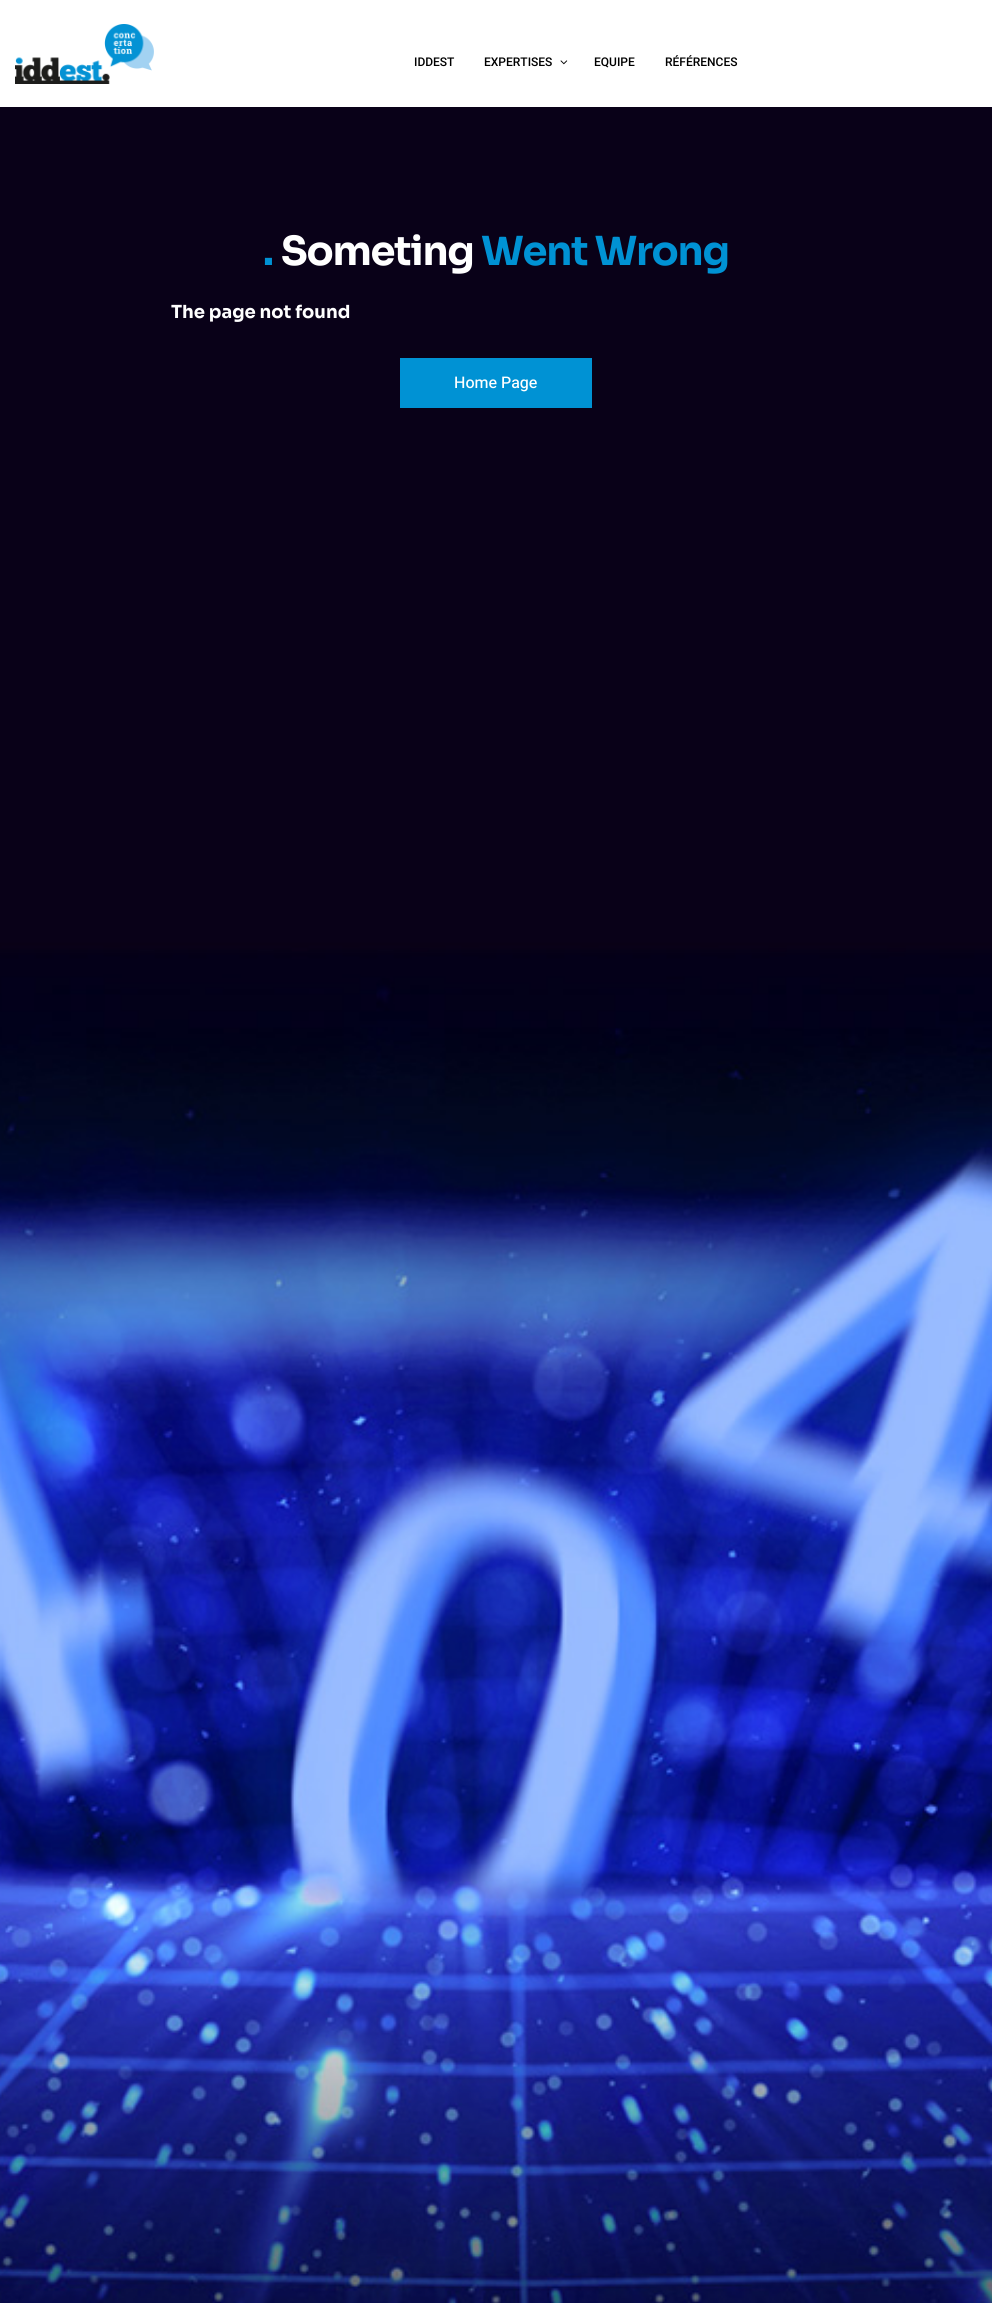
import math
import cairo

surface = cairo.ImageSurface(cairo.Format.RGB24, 992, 2303)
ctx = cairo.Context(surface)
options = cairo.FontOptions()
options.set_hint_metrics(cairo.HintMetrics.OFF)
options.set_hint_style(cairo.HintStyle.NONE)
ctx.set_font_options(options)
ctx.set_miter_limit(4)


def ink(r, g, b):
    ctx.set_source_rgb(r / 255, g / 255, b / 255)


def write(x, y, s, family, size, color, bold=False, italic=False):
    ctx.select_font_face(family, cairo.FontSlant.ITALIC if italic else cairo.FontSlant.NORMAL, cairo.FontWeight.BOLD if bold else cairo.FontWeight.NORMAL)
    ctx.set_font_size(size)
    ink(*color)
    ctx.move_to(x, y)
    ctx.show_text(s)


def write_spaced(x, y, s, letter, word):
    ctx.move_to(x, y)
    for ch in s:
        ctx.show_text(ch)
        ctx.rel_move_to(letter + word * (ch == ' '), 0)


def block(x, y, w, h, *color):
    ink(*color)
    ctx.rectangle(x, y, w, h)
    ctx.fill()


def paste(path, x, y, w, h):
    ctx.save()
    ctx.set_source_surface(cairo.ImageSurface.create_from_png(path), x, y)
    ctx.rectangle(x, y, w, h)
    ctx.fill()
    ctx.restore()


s1 = dict(family="Roboto Medium", size=12, color=(0, 0, 0))
s2 = dict(family="Sora", size=18, color=(255, 255, 255), bold=True)
s3 = dict(family="Heebo Medium", size=16, color=(255, 255, 255))

ink(255, 255, 255)
ctx.paint()
paste("pic1.png", 15, 24, 139, 60)
write(414, 66, "IDDEST", **s1)
write(484, 66, "EXPERTISES", **s1)
paste("pic2.png", 560, 60, 8, 5)
write(594, 66, "EQUIPE", **s1)
write(665, 66, "RÉFÉRENCES", **s1)
paste("pic3.png", 0, 107, 992, 2196)
ctx.select_font_face("Sora", cairo.FontSlant.NORMAL, cairo.FontWeight.BOLD)
ctx.set_font_size(40)
ink(0, 146, 212)
write_spaced(263, 265, ".", -1.25, 0)
ink(255, 255, 255)
write_spaced(281, 265, "Someting", -1.25, 0)
ink(0, 146, 212)
write_spaced(481, 265, "Went Wrong", -1.25, 0)
write(171, 318, "The page not found", **s2)
block(400, 358, 192, 50, 0, 146, 212)
write(454, 388, "Home Page", **s3)
surface.write_to_png("screenshot.png")
